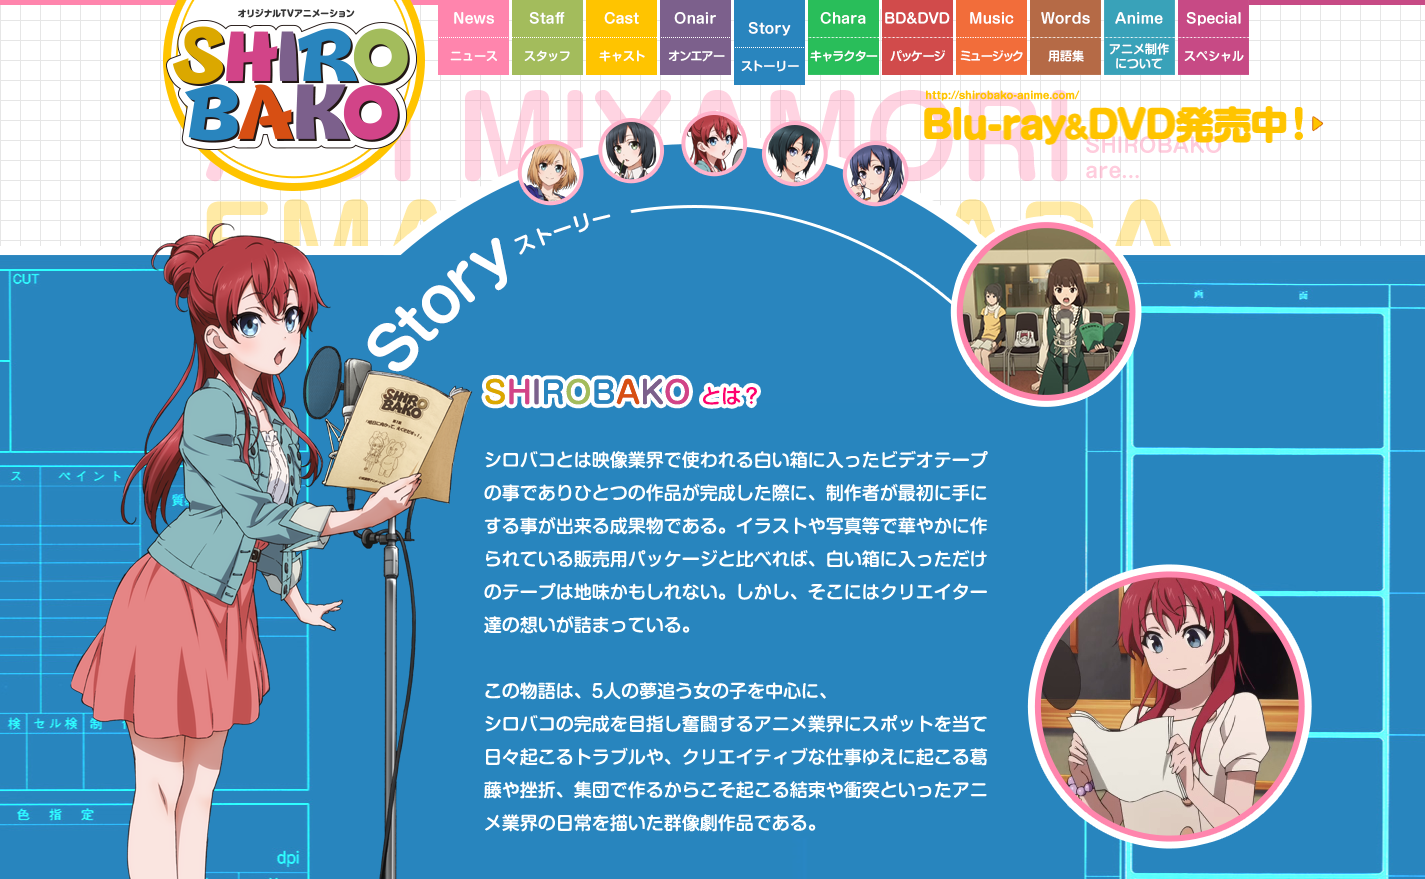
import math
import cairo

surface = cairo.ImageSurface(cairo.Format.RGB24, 1425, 879)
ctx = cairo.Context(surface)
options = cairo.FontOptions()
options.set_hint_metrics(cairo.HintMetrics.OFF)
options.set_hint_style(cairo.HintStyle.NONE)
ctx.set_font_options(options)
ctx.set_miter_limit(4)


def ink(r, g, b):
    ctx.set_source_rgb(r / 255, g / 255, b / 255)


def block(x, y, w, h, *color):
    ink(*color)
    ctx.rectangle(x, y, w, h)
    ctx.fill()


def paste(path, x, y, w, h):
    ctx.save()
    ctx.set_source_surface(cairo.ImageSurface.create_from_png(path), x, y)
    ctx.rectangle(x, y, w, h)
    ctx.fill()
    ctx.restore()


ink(255, 255, 255)
ctx.paint()
paste("pic1.png", 0, 5, 1425, 241)
paste("pic2.png", 0, 0, 1425, 5)
paste("pic17.png", 206, 90, 1016, 156)
paste("pic16.png", 924, 106, 400, 39)
paste("pic18.png", 0, 255, 1425, 624)
paste("pic21.png", 312, 133, 682, 270)
paste("pic3.png", 163, 0, 262, 191)
block(740, 5, 201, 4, 255, 255, 255)
paste("pic4.png", 438, 0, 71, 75)
paste("pic5.png", 512, 0, 71, 75)
paste("pic6.png", 586, 0, 71, 75)
paste("pic7.png", 660, 0, 71, 75)
paste("pic8.png", 734, 0, 71, 85)
paste("pic9.png", 808, 0, 71, 75)
paste("pic10.png", 882, 0, 71, 75)
paste("pic11.png", 956, 0, 71, 75)
paste("pic12.png", 1030, 0, 71, 75)
paste("pic13.png", 1104, 0, 71, 75)
paste("pic14.png", 1178, 0, 71, 75)
paste("pic15.png", 926, 90, 154, 11)
paste("pic19.png", 517, 111, 392, 96)
paste("pic20.png", 70, 223, 403, 656)
paste("pic23.png", 481, 375, 507, 457)
paste("pic22.png", 950, 216, 192, 191)
paste("pic24.png", 1027, 564, 285, 285)
surface.write_to_png("screenshot.png")
